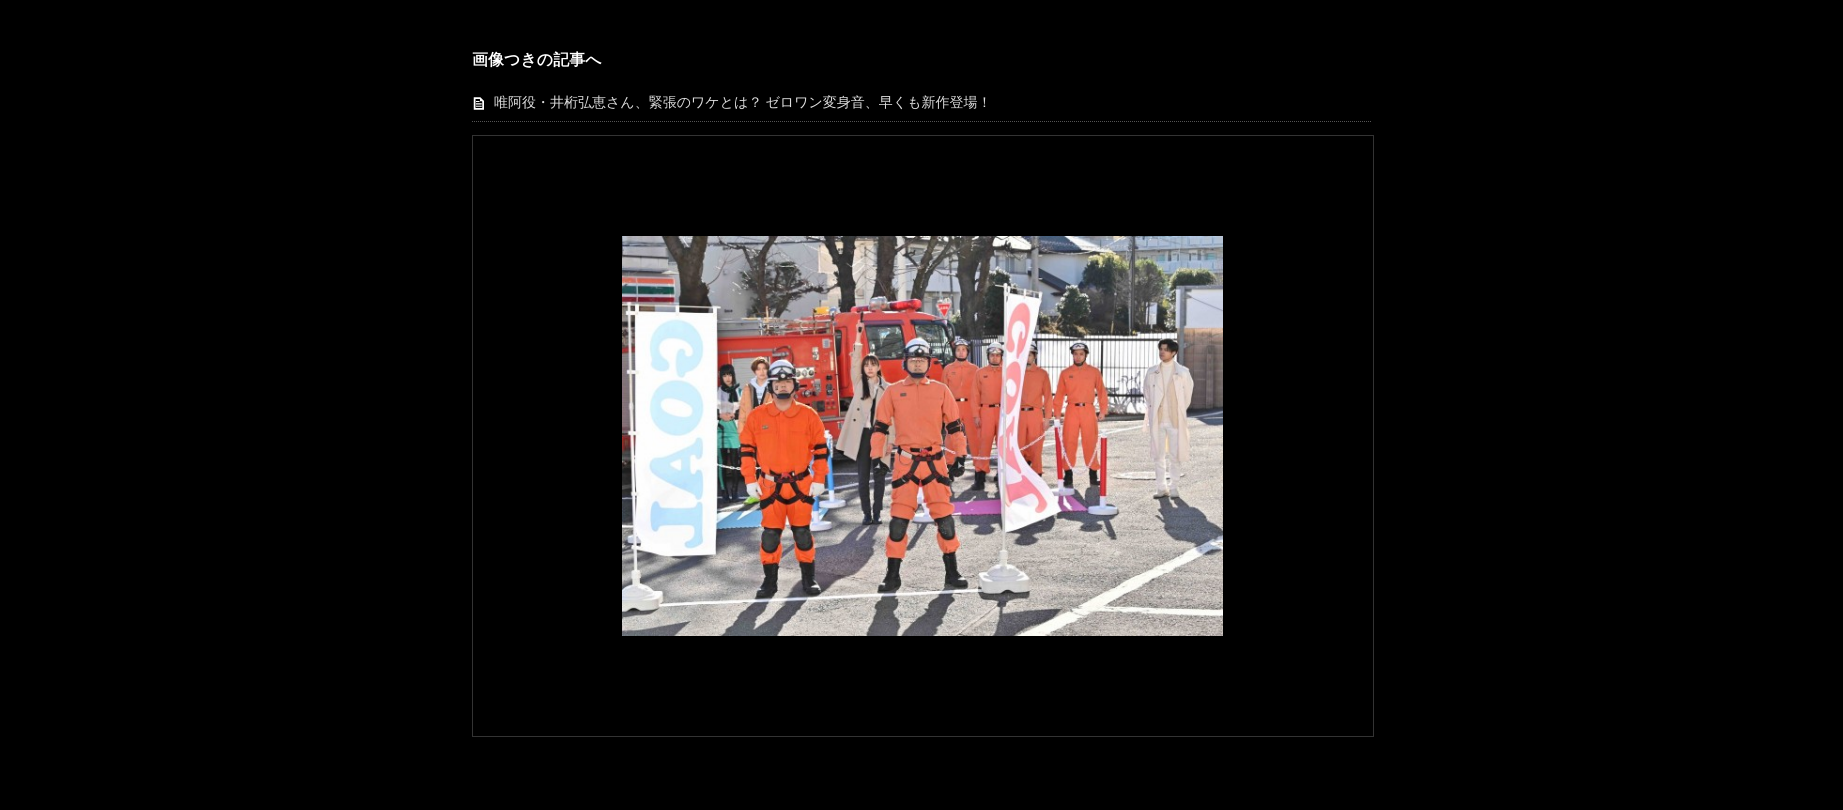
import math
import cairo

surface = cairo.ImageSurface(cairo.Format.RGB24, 1843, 810)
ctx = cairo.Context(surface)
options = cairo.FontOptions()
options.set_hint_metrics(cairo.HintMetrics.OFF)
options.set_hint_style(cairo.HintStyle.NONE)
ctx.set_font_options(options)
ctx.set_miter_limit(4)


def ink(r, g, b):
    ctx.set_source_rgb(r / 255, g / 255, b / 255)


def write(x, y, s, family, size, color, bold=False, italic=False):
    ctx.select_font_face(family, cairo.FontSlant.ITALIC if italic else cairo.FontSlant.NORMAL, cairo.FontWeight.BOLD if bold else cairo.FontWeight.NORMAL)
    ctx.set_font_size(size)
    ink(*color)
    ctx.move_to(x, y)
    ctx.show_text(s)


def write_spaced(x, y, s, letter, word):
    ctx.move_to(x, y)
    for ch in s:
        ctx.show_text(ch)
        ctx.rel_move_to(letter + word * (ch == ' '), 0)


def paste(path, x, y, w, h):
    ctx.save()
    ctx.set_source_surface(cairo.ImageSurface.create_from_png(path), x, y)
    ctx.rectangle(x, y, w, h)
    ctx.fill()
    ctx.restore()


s1 = dict(family="WenQuanYi Zen Hei", size=16, color=(255, 255, 255), bold=True)

ink(0, 0, 0)
ctx.paint()
write(472, 65, "画像つきの記事へ", **s1)
paste("pic1.png", 473, 97, 11, 13)
ctx.new_path()
ctx.move_to(472, 121.5)
ctx.line_to(1372, 121.5)
ink(85, 85, 85)
ctx.set_line_width(1)
ctx.set_dash([1, 1])
ctx.stroke()
ctx.select_font_face("WenQuanYi Zen Hei Medium")
ctx.set_font_size(14)
ink(221, 221, 221)
write_spaced(494, 107, "唯阿役・井桁弘恵さん、緊張のワケとは？ ゼロワン変身音、早くも新作登場！", 0, -1)
ctx.rectangle(472.5, 135.5, 901, 601)
ink(51, 51, 51)
ctx.set_dash([])
ctx.stroke()
paste("pic2.png", 622, 236, 601, 400)
surface.write_to_png("screenshot.png")
